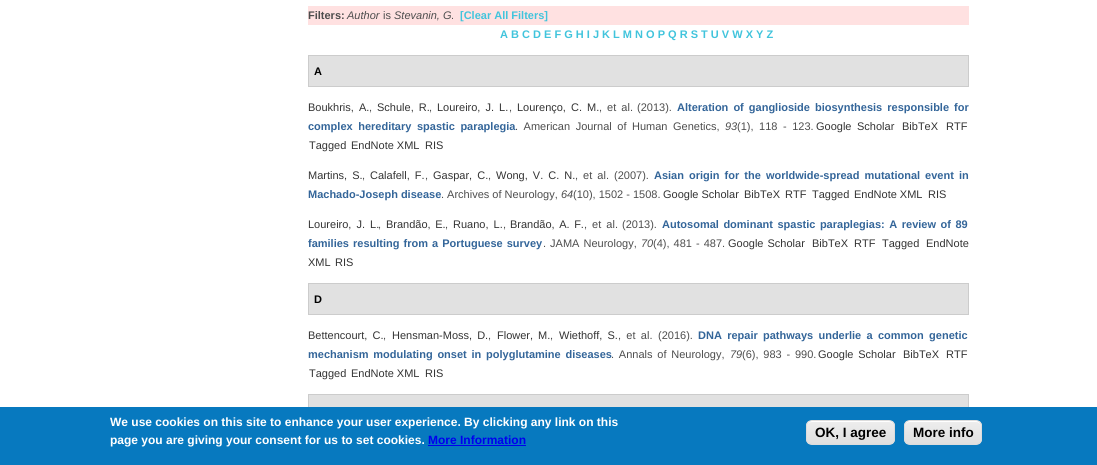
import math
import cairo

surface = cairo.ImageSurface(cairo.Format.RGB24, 1097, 465)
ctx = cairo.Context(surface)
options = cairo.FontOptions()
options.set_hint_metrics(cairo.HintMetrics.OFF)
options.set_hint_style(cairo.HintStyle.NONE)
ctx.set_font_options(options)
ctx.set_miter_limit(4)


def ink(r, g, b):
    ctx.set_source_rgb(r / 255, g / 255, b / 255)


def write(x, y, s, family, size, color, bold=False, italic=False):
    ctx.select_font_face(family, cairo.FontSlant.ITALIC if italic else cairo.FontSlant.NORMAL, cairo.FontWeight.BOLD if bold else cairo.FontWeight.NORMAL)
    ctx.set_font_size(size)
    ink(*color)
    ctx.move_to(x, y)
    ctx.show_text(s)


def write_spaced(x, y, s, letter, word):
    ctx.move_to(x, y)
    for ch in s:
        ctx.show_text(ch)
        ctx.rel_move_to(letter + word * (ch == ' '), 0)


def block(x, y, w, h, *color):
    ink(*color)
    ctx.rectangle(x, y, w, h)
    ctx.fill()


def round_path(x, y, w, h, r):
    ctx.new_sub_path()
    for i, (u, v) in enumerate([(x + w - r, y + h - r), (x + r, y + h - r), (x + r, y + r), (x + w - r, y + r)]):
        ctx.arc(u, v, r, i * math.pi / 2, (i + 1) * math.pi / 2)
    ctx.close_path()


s1 = dict(family="Liberation Sans", size=11, color=(77, 77, 77), bold=True)
s2 = dict(family="Liberation Sans", size=11, color=(77, 77, 77), italic=True)
s3 = dict(family="Liberation Sans", size=11, color=(77, 77, 77))
s4 = dict(family="Liberation Sans", size=11, color=(65, 196, 220), bold=True)
s5 = dict(family="Liberation Sans", size=11, color=(0, 0, 0), bold=True)
s6 = dict(family="Liberation Sans", size=11, color=(51, 51, 51))
s7 = dict(family="Liberation Sans", size=11, color=(51, 101, 153), bold=True)
s8 = dict(family="Liberation Sans", size=12, color=(255, 255, 255), bold=True)
s9 = dict(family="Liberation Sans", size=12, color=(0, 0, 238), bold=True)
s10 = dict(family="Liberation Sans", size=13.5, color=(0, 0, 0), bold=True)

ink(255, 255, 255)
ctx.paint()
block(308, 6, 661, 19, 255, 225, 225)
write(308, 19, "Filters:", **s1)
write(347, 19, "Author", **s2)
write(383, 19, "is", **s3)
write(394, 19, "Stevanin, G.", **s2)
write(460, 19, "[Clear All Filters]", **s4)
write(500, 38, "A B C D E F G H I J K L M N O P Q R S T U V W X Y Z", **s4)
ink(225, 225, 225)
ctx.rectangle(308.5, 55.5, 660, 31)
ctx.fill_preserve()
ink(204, 204, 204)
ctx.set_line_width(1)
ctx.stroke()
write(314, 75, "A", **s5)
ctx.select_font_face("Liberation Sans")
ink(51, 51, 51)
write_spaced(308, 111, "Boukhris, A.", 0, 2)
write(369, 111, ",", **s3)
ink(51, 51, 51)
write_spaced(377, 111, "Schule, R.", 0, 2)
write(429, 111, ",", **s3)
ink(51, 51, 51)
write_spaced(437, 111, "Loureiro, J. L.", 0, 2)
write(509, 111, ",", **s3)
ink(51, 51, 51)
write_spaced(517, 111, "Lourenço, C. M.", 0, 2)
ink(77, 77, 77)
write_spaced(599, 111, ", et al.", 0, 2)
write(637, 111, "(2013).", **s3)
ctx.select_font_face("Liberation Sans", cairo.FontSlant.NORMAL, cairo.FontWeight.BOLD)
ink(51, 101, 153)
write_spaced(677, 111, "Alteration of ganglioside biosynthesis responsible for", 0, 2)
write_spaced(308, 130, "complex hereditary spastic paraplegia", 0, 2.5)
ctx.select_font_face("Liberation Sans")
ink(77, 77, 77)
write_spaced(515, 130, ". American Journal of Human Genetics,", 0, 2.5)
write(725, 130, "93", **s2)
ctx.select_font_face("Liberation Sans")
write_spaced(737, 130, "(1), 118 - 123.", 0, 2.5)
ink(51, 51, 51)
write_spaced(816, 130, "Google Scholar", 0, 2.5)
write(902, 130, "BibTeX", **s6)
write(946, 130, "RTF", **s6)
write(309, 149, "Tagged", **s6)
write(351, 149, "EndNote XML", **s6)
write(425, 149, "RIS", **s6)
write_spaced(308, 179, "Martins, S.", 0, 2)
write(362, 179, ",", **s3)
ink(51, 51, 51)
write_spaced(370, 179, "Calafell, F.", 0, 2)
write(425, 179, ",", **s3)
ink(51, 51, 51)
write_spaced(433, 179, "Gaspar, C.", 0, 2)
write(488, 179, ",", **s3)
ink(51, 51, 51)
write_spaced(496, 179, "Wong, V. C. N.", 0, 2)
ink(77, 77, 77)
write_spaced(575, 179, ", et al.", 0, 2)
write(614, 179, "(2007).", **s3)
ctx.select_font_face("Liberation Sans", cairo.FontSlant.NORMAL, cairo.FontWeight.BOLD)
ink(51, 101, 153)
write_spaced(654, 179, "Asian origin for the worldwide-spread mutational event in", 0, 2)
write(308, 198, "Machado-Joseph disease", **s7)
write(441, 198, ". Archives of Neurology,", **s3)
write(561, 198, "64", **s2)
write(573, 198, "(10), 1502 - 1508.", **s3)
write(663, 198, "Google Scholar", **s6)
write(744, 198, "BibTeX", **s6)
write(785, 198, "RTF", **s6)
write(812, 198, "Tagged", **s6)
write(854, 198, "EndNote XML", **s6)
write(928, 198, "RIS", **s6)
write_spaced(308, 228, "Loureiro, J. L.", 0, 2)
write(378, 228, ",", **s3)
ink(51, 51, 51)
write_spaced(386, 228, "Brandão, E.", 0, 1.5)
write(445, 228, ",", **s3)
ink(51, 51, 51)
write_spaced(453, 228, "Ruano, L.", 0, 2)
write(503, 228, ",", **s3)
ink(51, 51, 51)
write_spaced(510, 228, "Brandão, A. F.", 0, 1.5)
ink(77, 77, 77)
write_spaced(584, 228, ", et al.", 0, 2)
write(622, 228, "(2013).", **s3)
ctx.select_font_face("Liberation Sans", cairo.FontSlant.NORMAL, cairo.FontWeight.BOLD)
ink(51, 101, 153)
write_spaced(662, 228, "Autosomal dominant spastic paraplegias: A review of 89", 0, 1.5)
write_spaced(308, 247, "families resulting from a Portuguese survey", 0, 1)
ctx.select_font_face("Liberation Sans")
ink(77, 77, 77)
write_spaced(543, 247, ". JAMA Neurology,", 0, 1)
write(641, 247, "70", **s2)
ctx.select_font_face("Liberation Sans")
write_spaced(653, 247, "(4), 481 - 487.", 0, 1)
ink(51, 51, 51)
write_spaced(728, 247, "Google Scholar", 0, 1)
write(812, 247, "BibTeX", **s6)
write(854, 247, "RTF", **s6)
write(882, 247, "Tagged", **s6)
write(926, 247, "EndNote", **s6)
write(308, 266, "XML", **s6)
write(335, 266, "RIS", **s6)
ink(225, 225, 225)
ctx.rectangle(308.5, 283.5, 660, 31)
ctx.fill_preserve()
ink(204, 204, 204)
ctx.stroke()
write(314, 303, "D", **s5)
ctx.select_font_face("Liberation Sans")
ink(51, 51, 51)
write_spaced(308, 339, "Bettencourt, C.", 0, 2.25)
write(383, 339, ",", **s3)
ink(51, 51, 51)
write_spaced(392, 339, "Hensman-Moss, D.", 0, 2)
write(488, 339, ",", **s3)
ink(51, 51, 51)
write_spaced(497, 339, "Flower, M.", 0, 2)
write(550, 339, ",", **s3)
ink(51, 51, 51)
write_spaced(559, 339, "Wiethoff, S.", 0, 2)
ink(77, 77, 77)
write_spaced(618, 339, ", et al.", 0, 2.25)
write(658, 339, "(2016).", **s3)
ctx.select_font_face("Liberation Sans", cairo.FontSlant.NORMAL, cairo.FontWeight.BOLD)
ink(51, 101, 153)
write_spaced(698, 339, "DNA repair pathways underlie a common genetic", 0, 2.25)
write_spaced(308, 358, "mechanism modulating onset in polyglutamine diseases", 0, 1.75)
ctx.select_font_face("Liberation Sans")
ink(77, 77, 77)
write_spaced(611, 358, ". Annals of Neurology,", 0, 1.75)
write(730, 358, "79", **s2)
ctx.select_font_face("Liberation Sans")
write_spaced(742, 358, "(6), 983 - 990.", 0, 1.75)
ink(51, 51, 51)
write_spaced(818, 358, "Google Scholar", 0, 1.75)
write(903, 358, "BibTeX", **s6)
write(946, 358, "RTF", **s6)
write(309, 377, "Tagged", **s6)
write(351, 377, "EndNote XML", **s6)
write(425, 377, "RIS", **s6)
block(309, 395, 659, 12, 225, 225, 225)
ctx.rectangle(308.5, 394.5, 660, 31)
ink(204, 204, 204)
ctx.stroke()
block(0, 407, 1097, 58, 7, 121, 191)
write(110, 426, "We use cookies on this site to enhance your user experience. By clicking any link on this", **s8)
write(110, 444, "page you are giving your consent for us to set cookies.", **s8)
write(428, 444, "More Information", **s9)
block(428, 445, 98, 1, 0, 0, 238)
ctx.save()
round_path(806, 420, 89, 25, 6)
ctx.clip()
gradient = cairo.LinearGradient(851, 421, 851, 444)
gradient.add_color_stop_rgba(0.05, 0.929, 0.929, 0.929, 1)
gradient.add_color_stop_rgba(1, 0.875, 0.875, 0.875, 1)
ctx.set_source(gradient)
ctx.rectangle(806, 421, 89, 23)
ctx.fill()
ctx.restore()
ink(255, 255, 255)
ctx.new_path()
ctx.move_to(812, 422)
ctx.line_to(889, 422)
ctx.curve_to(892, 422, 894, 424, 894, 427)
ctx.curve_to(894, 418, 882, 421, 876, 421)
ctx.line_to(825, 421)
ctx.curve_to(819, 421, 807, 418, 807, 427)
ctx.curve_to(807, 424, 809, 422, 812, 422)
ctx.close_path()
ctx.fill()
round_path(806.5, 420.5, 88, 24, 5.5)
ink(220, 220, 220)
ctx.stroke()
write(815, 437, "OK, I agree", **s10)
ctx.save()
round_path(904, 420, 78, 25, 6)
ctx.clip()
gradient = cairo.LinearGradient(943, 421, 943, 444)
gradient.add_color_stop_rgba(0.05, 0.929, 0.929, 0.929, 1)
gradient.add_color_stop_rgba(1, 0.875, 0.875, 0.875, 1)
ctx.set_source(gradient)
ctx.rectangle(904, 421, 78, 23)
ctx.fill()
ctx.restore()
ink(255, 255, 255)
ctx.new_path()
ctx.move_to(910, 422)
ctx.line_to(976, 422)
ctx.curve_to(979, 422, 981, 424, 981, 427)
ctx.curve_to(981, 418, 971, 421, 965, 421)
ctx.line_to(921, 421)
ctx.curve_to(915, 421, 905, 418, 905, 427)
ctx.curve_to(905, 424, 907, 422, 910, 422)
ctx.close_path()
ctx.fill()
round_path(904.5, 420.5, 77, 24, 5.5)
ink(220, 220, 220)
ctx.stroke()
write(913, 437, "More info", **s10)
surface.write_to_png("screenshot.png")
